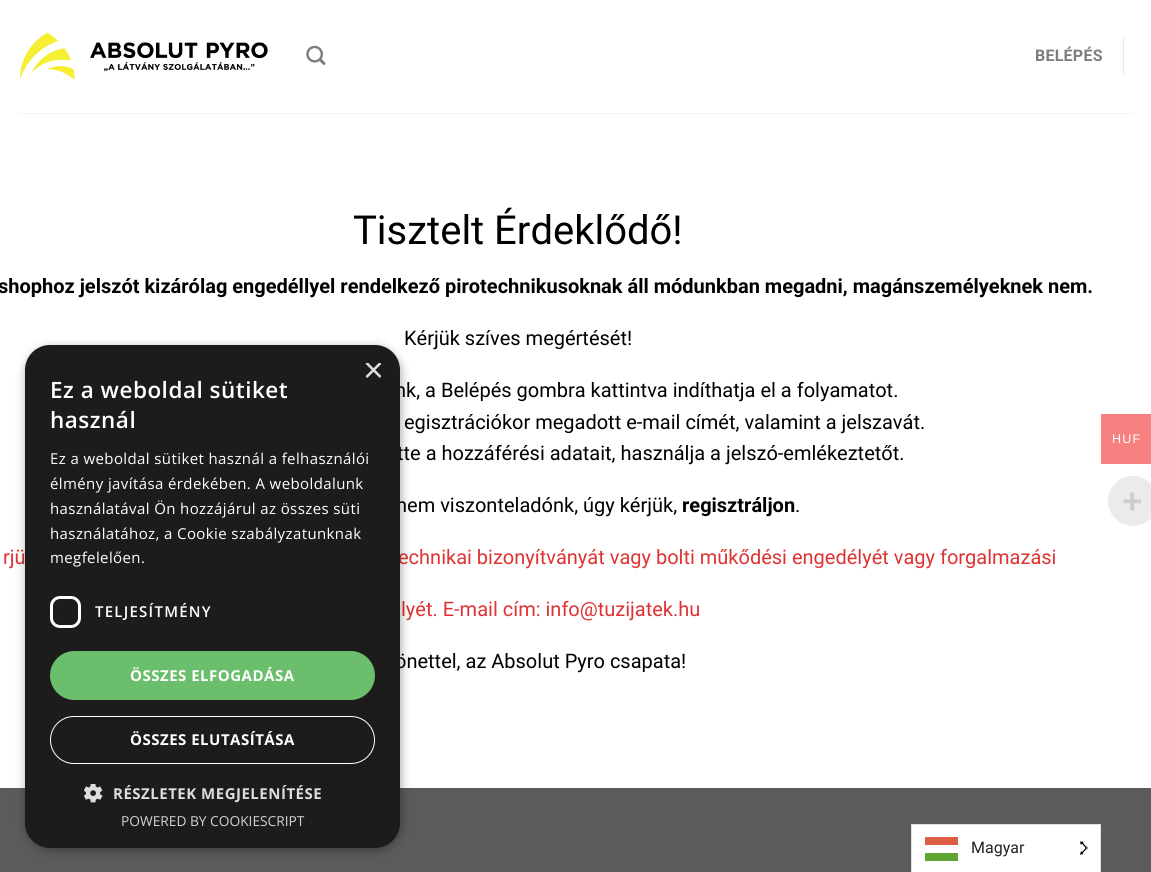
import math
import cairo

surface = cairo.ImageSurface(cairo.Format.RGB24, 1151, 872)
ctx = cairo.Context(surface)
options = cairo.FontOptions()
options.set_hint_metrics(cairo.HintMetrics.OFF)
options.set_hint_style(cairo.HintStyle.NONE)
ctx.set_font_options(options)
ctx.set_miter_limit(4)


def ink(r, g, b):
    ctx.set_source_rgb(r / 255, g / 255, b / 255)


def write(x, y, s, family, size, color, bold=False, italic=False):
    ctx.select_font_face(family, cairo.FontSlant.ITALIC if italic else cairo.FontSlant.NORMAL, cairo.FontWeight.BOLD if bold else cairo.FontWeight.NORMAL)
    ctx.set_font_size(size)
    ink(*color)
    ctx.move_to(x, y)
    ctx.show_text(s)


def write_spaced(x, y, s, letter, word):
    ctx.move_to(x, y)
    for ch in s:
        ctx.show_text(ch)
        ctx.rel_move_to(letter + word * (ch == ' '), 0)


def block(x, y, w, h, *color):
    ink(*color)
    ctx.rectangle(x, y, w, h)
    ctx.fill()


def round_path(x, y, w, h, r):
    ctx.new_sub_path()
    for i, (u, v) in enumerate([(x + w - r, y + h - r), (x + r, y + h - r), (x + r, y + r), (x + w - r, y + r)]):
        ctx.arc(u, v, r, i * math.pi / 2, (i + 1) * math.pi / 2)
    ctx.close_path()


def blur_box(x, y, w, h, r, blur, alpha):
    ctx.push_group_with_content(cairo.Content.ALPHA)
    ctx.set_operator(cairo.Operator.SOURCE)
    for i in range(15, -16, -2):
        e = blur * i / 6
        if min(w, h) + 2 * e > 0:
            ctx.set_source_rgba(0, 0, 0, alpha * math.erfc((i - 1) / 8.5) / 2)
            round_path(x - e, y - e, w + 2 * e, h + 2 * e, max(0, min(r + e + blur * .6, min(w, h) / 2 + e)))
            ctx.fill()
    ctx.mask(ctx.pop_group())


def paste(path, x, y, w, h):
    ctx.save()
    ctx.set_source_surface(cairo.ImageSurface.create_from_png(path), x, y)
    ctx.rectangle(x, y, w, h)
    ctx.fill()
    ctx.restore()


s1 = dict(family="Roboto", size=40, color=(0, 0, 0))
s2 = dict(family="Roboto", size=20, color=(0, 0, 0), bold=True)
s3 = dict(family="Roboto", size=20, color=(0, 0, 0))
s4 = dict(family="Roboto", size=20, color=(221, 51, 51))
s5 = dict(family="Liberation Sans", size=36, color=(221, 221, 221))
s6 = dict(family="Open Sans", size=13.75, color=(210, 210, 210))
s7 = dict(family="Liberation Sans", size=35, color=(204, 204, 204), bold=True)
s8 = dict(family="Roboto", size=16, color=(34, 34, 34))

ink(91, 91, 91)
ctx.paint()
block(0, 0, 1151, 788, 255, 255, 255)
paste("pic1.png", 19, 32, 249, 48)
paste("pic2.png", 306, 45, 20, 20)
ctx.select_font_face("Roboto", cairo.FontSlant.NORMAL, cairo.FontWeight.BOLD)
ctx.set_font_size(16)
ink(125, 125, 125)
write_spaced(1035, 61, "BELÉPÉS", 0.25, 0)
block(1123, 38, 1, 37, 230, 230, 230)
block(19, 113, 1114, 1, 241, 241, 241)
write(353, 244, "Tisztelt Érdeklődő!", **s1)
write(-2, 293, "shophoz jelszót kizárólag engedéllyel rendelkező pirotechnikusoknak áll módunkban megadni, magánszemélyeknek nem.", **s2)
write(404, 345, "Kérjük szíves megértését!", **s3)
write(395, 397, "nk, a Belépés gombra kattintva indíthatja el a folyamatot.", **s3)
write(404, 429, "egisztrációkor megadott e-mail címét, valamint a jelszavát.", **s3)
write(397, 460, "tte a hozzáférési adatait, használja a jelszó-emlékeztetőt.", **s3)
write(396, 512, "nem viszonteladónk, úgy kérjük,", **s3)
write(682, 512, "regisztráljon", **s2)
write(795, 512, ".", **s3)
write(3, 564, "rjü", **s4)
write(398, 564, "echnikai bizonyítványát vagy bolti műkődési engedélyét vagy forgalmazási", **s4)
write(401, 616, "lyét. E-mail cím: info@tuzijatek.hu", **s4)
write(395, 668, "önettel, az Absolut Pyro csapata!", **s3)
ink(0, 0, 0)
blur_box(26, 348, 375, 502, 25, 5, 0.35)
ink(28, 28, 28)
round_path(25, 345, 375, 503, 25)
ctx.fill()
ctx.save()
ctx.rectangle(363, 363, 18, 18)
ctx.clip()
write(363, 382, "×", **s5)
ctx.restore()
ctx.select_font_face("Open Sans SemiBold")
ctx.set_font_size(22.5)
ink(255, 255, 255)
write_spaced(50, 398, "Ez a weboldal sütiket", 0.5, 0)
write_spaced(50, 428, "használ", 0.5, 0)
ctx.select_font_face("Open Sans")
ctx.set_font_size(15)
write_spaced(50, 464, "Ez a weboldal sütiket használ a felhasználói", 0.4, 0)
write_spaced(50, 489, "élmény javítása érdekében. A weboldalunk", 0.4, 0)
write_spaced(50, 514, "használatával Ön hozzájárul az összes süti", 0.4, 0)
write_spaced(50, 539, "használatához, a Cookie szabályzatunknak", 0.4, 0)
write_spaced(50, 563, "megfelelően.", 0.4, 0)
round_path(51.5, 597.5, 28, 29, 8.5)
ctx.set_line_width(3)
ctx.stroke()
ctx.select_font_face("Open Sans SemiBold")
write_spaced(95, 617, "TELJESÍTMÉNY", 1.25, 0)
ink(107, 190, 107)
round_path(50, 651, 325, 49, 24.5)
ctx.fill()
ctx.select_font_face("Open Sans", cairo.FontSlant.NORMAL, cairo.FontWeight.BOLD)
ink(255, 255, 255)
write_spaced(130, 681, "ÖSSZES ELFOGADÁSA", 0.5, 0)
round_path(50.5, 716.5, 324, 47, 23.5)
ctx.set_line_width(1)
ctx.stroke()
write_spaced(130, 745, "ÖSSZES ELUTASÍTÁSA", 0.5, 0)
paste("pic3.png", 84, 784, 19, 19)
ink(221, 221, 221)
write_spaced(113, 799, "RÉSZLETEK MEGJELENÍTÉSE", 0.5, 0)
write(121, 826, "POWERED BY COOKIESCRIPT", **s6)
block(1101, 414, 50, 50, 247, 128, 128)
ctx.select_font_face("Liberation Sans")
ctx.set_font_size(12.5)
ink(255, 255, 255)
write_spaced(1112, 443, "HUF", 1.25, 0)
ink(235, 235, 235)
ctx.new_path()
ctx.arc(1133, 501, 25, 0, 2 * math.pi)
ctx.fill()
write(1122, 513, "+", **s7)
ink(255, 255, 255)
ctx.rectangle(911.5, 824.5, 189, 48)
ctx.fill_preserve()
ink(224, 224, 224)
ctx.stroke()
block(925, 853, 33, 8, 96, 164, 51)
block(925, 837, 33, 8, 221, 93, 69)
write(971, 853, "Magyar", **s8)
paste("pic4.png", 1080, 841, 8, 14)
surface.write_to_png("screenshot.png")
